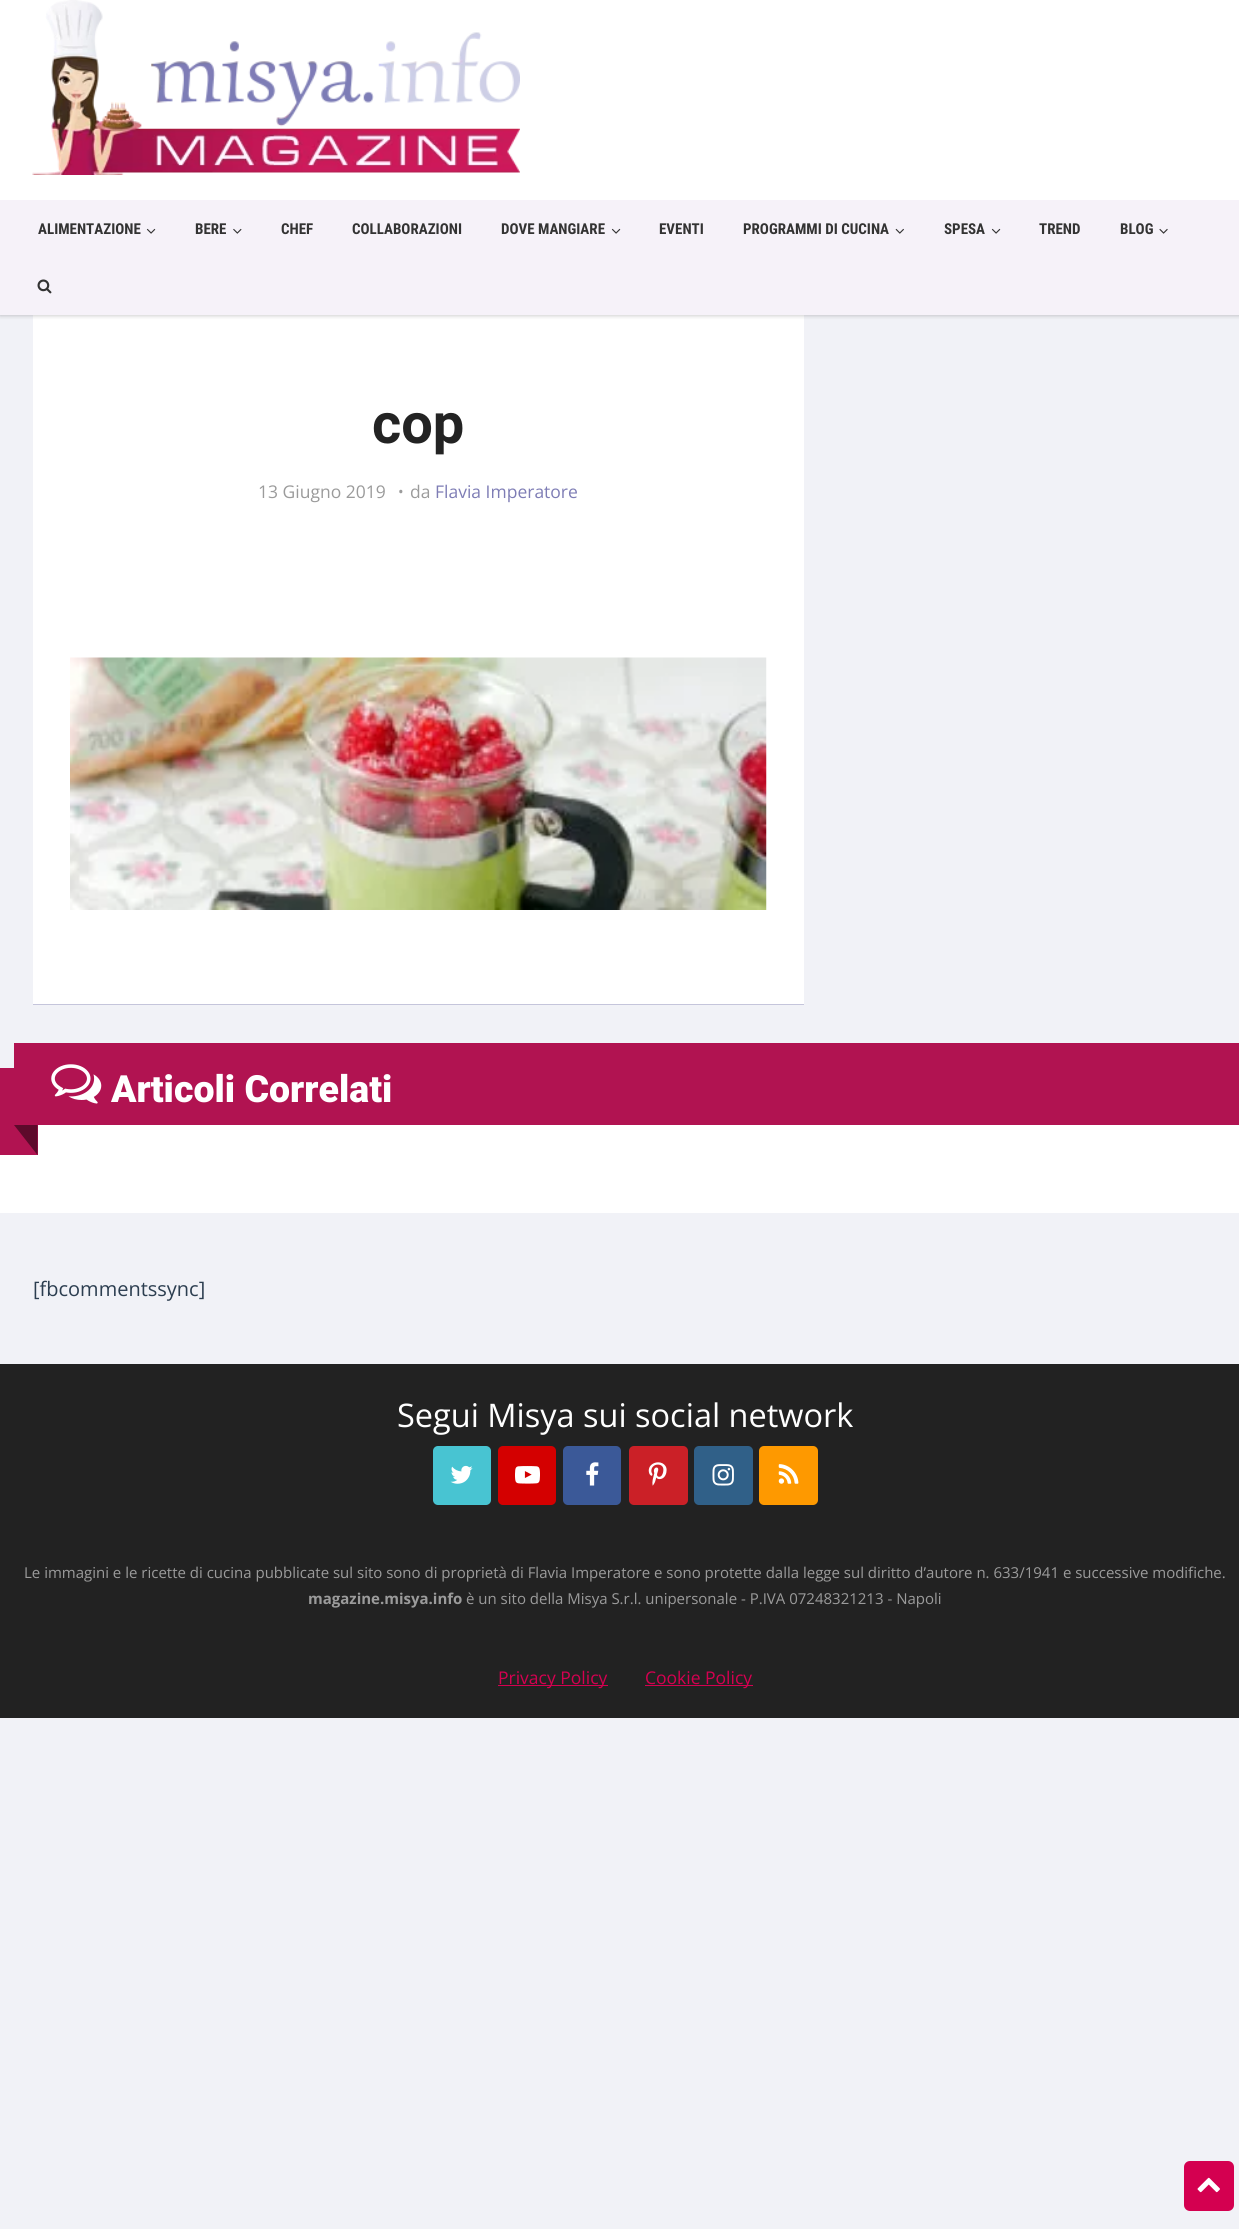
import math
import cairo

surface = cairo.ImageSurface(cairo.Format.RGB24, 1239, 2229)
ctx = cairo.Context(surface)
options = cairo.FontOptions()
options.set_hint_metrics(cairo.HintMetrics.OFF)
options.set_hint_style(cairo.HintStyle.NONE)
ctx.set_font_options(options)
ctx.set_miter_limit(4)


def ink(r, g, b):
    ctx.set_source_rgb(r / 255, g / 255, b / 255)


def write(x, y, s, family, size, color, bold=False, italic=False):
    ctx.select_font_face(family, cairo.FontSlant.ITALIC if italic else cairo.FontSlant.NORMAL, cairo.FontWeight.BOLD if bold else cairo.FontWeight.NORMAL)
    ctx.set_font_size(size)
    ink(*color)
    ctx.move_to(x, y)
    ctx.show_text(s)


def block(x, y, w, h, *color):
    ink(*color)
    ctx.rectangle(x, y, w, h)
    ctx.fill()


def round_path(x, y, w, h, r):
    ctx.new_sub_path()
    for i, (u, v) in enumerate([(x + w - r, y + h - r), (x + r, y + h - r), (x + r, y + r), (x + w - r, y + r)]):
        ctx.arc(u, v, r, i * math.pi / 2, (i + 1) * math.pi / 2)
    ctx.close_path()


def blur_box(x, y, w, h, r, blur, alpha):
    ctx.push_group_with_content(cairo.Content.ALPHA)
    ctx.set_operator(cairo.Operator.SOURCE)
    for i in range(15, -16, -2):
        e = blur * i / 6
        if min(w, h) + 2 * e > 0:
            ctx.set_source_rgba(0, 0, 0, alpha * math.erfc((i - 1) / 8.5) / 2)
            round_path(x - e, y - e, w + 2 * e, h + 2 * e, max(0, min(r + e + blur * .6, min(w, h) / 2 + e)))
            ctx.fill()
    ctx.mask(ctx.pop_group())


def paste(path, x, y, w, h):
    ctx.save()
    ctx.set_source_surface(cairo.ImageSurface.create_from_png(path), x, y)
    ctx.rectangle(x, y, w, h)
    ctx.fill()
    ctx.restore()


s1 = dict(family="Roboto Condensed", size=15, color=(51, 51, 51), bold=True)
s2 = dict(family="Roboto", size=56, color=(35, 35, 35), bold=True)
s3 = dict(family="Open Sans", size=17.5, color=(155, 155, 155))
s4 = dict(family="Open Sans", size=15, color=(155, 155, 155))
s5 = dict(family="Open Sans", size=17.5, color=(126, 125, 181))
s6 = dict(family="Roboto Black", size=37.5, color=(255, 255, 255))
s7 = dict(family="Open Sans", size=20, color=(44, 62, 80))
s8 = dict(family="Open Sans", size=32.5, color=(255, 255, 255))
s9 = dict(family="Open Sans", size=15, color=(155, 155, 155), bold=True)
s10 = dict(family="Open Sans", size=17.5, color=(212, 0, 80))

ink(241, 242, 247)
ctx.paint()
block(33, 315, 771, 689, 255, 255, 255)
ink(0, 0, 0)
blur_box(0, 1, 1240, 315, 0, 2, 0.2)
block(0, 0, 1239, 200, 255, 255, 255)
paste("pic1.png", 32, 0, 488, 175)
block(0, 200, 1239, 115, 246, 242, 249)
write(38, 234, "ALIMENTAZIONE", **s1)
paste("pic2.png", 146, 228, 10, 6)
write(195, 234, "BERE", **s1)
paste("pic3.png", 233, 228, 9, 6)
write(281, 234, "CHEF", **s1)
write(352, 234, "COLLABORAZIONI", **s1)
write(501, 234, "DOVE MANGIARE", **s1)
paste("pic2.png", 611, 228, 10, 6)
write(659, 234, "EVENTI", **s1)
write(743, 234, "PROGRAMMI DI CUCINA", **s1)
paste("pic4.png", 895, 228, 9, 6)
write(944, 234, "SPESA", **s1)
paste("pic2.png", 991, 228, 10, 6)
write(1039, 234, "TREND", **s1)
write(1120, 234, "BLOG", **s1)
paste("pic5.png", 1159, 228, 9, 6)
paste("pic6.png", 37, 279, 15, 15)
write(372, 443, "cop", **s2)
write(258, 498, "13 Giugno 2019", **s3)
write(398, 497, "•", **s4)
write(410, 498, "da", **s3)
write(435, 498, "Flavia Imperatore", **s5)
paste("pic7.png", 70, 657, 697, 253)
block(33, 1004, 771, 1, 197, 197, 219)
block(0, 1125, 1239, 88, 255, 255, 255)
block(14, 1043, 1225, 82, 177, 19, 81)
block(0, 1068, 14, 87, 177, 19, 81)
paste("pic8.png", 51, 1064, 51, 40)
write(111, 1102, "Articoli Correlati", **s6)
block(14, 1125, 24, 30, 177, 19, 81)
ink(93, 10, 43)
ctx.new_path()
ctx.move_to(37.5, 1125)
ctx.line_to(37.5, 1155)
ctx.line_to(14, 1125)
ctx.close_path()
ctx.fill()
write(33, 1296, "[fbcommentssync]", **s7)
block(0, 1364, 1239, 354, 34, 34, 34)
write(397, 1427, "Segui Misya sui social network", **s8)
ink(72, 196, 210)
round_path(433, 1446, 58, 59, 5)
ctx.fill()
paste("pic9.png", 450, 1465, 23, 19)
ink(212, 0, 0)
round_path(498, 1446, 58, 59, 5)
ctx.fill()
paste("pic10.png", 515, 1466, 25, 18)
ink(59, 89, 152)
round_path(563, 1446, 58, 59, 5)
ctx.fill()
paste("pic11.png", 586, 1462, 13, 24)
ink(203, 32, 39)
round_path(629, 1446, 59, 59, 5)
ctx.fill()
paste("pic12.png", 648, 1462, 19, 24)
ink(48, 96, 136)
round_path(694, 1446, 59, 59, 5)
ctx.fill()
paste("pic13.png", 712, 1464, 22, 22)
ink(254, 153, 0)
round_path(759, 1446, 59, 59, 5)
ctx.fill()
paste("pic14.png", 778, 1464, 21, 20)
write(24, 1578, "Le immagini e le ricette di cucina pubblicate sul sito sono di proprietà di Flavia Imperatore e sono protette dalla legge sul diritto d’autore n. 633/1941 e successive modifiche.", **s4)
write(308, 1604, "magazine.misya.info", **s9)
write(466, 1604, "è un sito della Misya S.r.l. unipersonale - P.IVA 07248321213 - Napoli", **s4)
block(498, 1685, 110, 1, 212, 0, 80)
write(498, 1684, "Privacy Policy", **s10)
block(645, 1685, 108, 1, 212, 0, 80)
write(645, 1684, "Cookie Policy", **s10)
round_path(1184, 2161, 50, 50, 6)
ctx.fill()
paste("pic15.png", 1197, 2177, 23, 16)
surface.write_to_png("screenshot.png")
